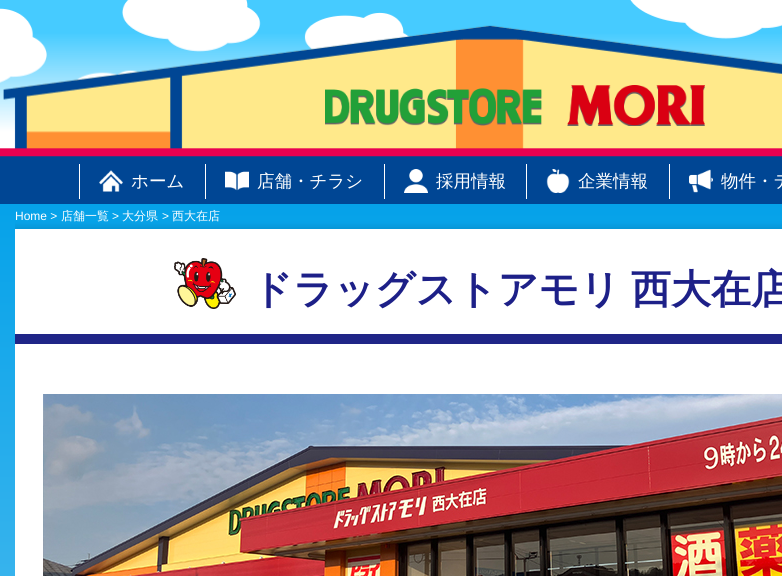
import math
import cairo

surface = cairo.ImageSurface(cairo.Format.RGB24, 782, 576)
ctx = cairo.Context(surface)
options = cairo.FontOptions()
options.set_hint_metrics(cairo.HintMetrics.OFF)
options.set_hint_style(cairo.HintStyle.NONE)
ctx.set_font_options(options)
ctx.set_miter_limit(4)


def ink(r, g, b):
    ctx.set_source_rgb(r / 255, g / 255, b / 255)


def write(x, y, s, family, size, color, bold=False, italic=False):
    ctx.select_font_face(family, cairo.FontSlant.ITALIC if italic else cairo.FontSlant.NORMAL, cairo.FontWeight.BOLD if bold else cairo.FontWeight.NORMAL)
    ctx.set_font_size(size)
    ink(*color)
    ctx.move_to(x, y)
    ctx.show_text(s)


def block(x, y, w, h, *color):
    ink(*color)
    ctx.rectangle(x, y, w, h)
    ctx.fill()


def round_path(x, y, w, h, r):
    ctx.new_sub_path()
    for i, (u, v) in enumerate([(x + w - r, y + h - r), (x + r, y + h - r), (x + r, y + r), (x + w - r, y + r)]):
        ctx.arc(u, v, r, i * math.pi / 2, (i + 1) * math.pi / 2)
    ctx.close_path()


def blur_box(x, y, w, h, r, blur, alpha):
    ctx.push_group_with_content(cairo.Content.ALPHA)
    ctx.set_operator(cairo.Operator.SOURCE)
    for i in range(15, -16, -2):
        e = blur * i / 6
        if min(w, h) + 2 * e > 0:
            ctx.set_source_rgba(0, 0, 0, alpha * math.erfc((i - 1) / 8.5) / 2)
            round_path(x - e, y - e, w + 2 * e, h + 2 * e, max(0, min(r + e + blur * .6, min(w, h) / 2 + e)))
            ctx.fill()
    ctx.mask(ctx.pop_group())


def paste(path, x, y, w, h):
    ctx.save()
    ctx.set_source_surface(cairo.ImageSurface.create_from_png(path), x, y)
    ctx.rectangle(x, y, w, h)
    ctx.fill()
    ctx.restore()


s1 = dict(family="WenQuanYi Zen Hei Medium", size=17.5, color=(255, 255, 255))
s2 = dict(family="Liberation Sans", size=12, color=(255, 255, 255))
s3 = dict(family="WenQuanYi Zen Hei Medium", size=12, color=(255, 255, 255))
s4 = dict(family="WenQuanYi Zen Hei", size=40, color=(29, 32, 136), bold=True)

ink(255, 255, 255)
ctx.paint()
paste("pic1.png", 0, 0, 782, 204)
paste("pic2.png", 325, 85, 380, 41)
block(79, 164, 1, 35, 255, 255, 255)
paste("pic3.png", 99, 170, 24, 22)
write(131, 187, "ホーム", **s1)
block(205, 164, 1, 35, 255, 255, 255)
paste("pic4.png", 225, 171, 24, 20)
write(257, 187, "店舗・チラシ", **s1)
block(384, 164, 1, 35, 255, 255, 255)
paste("pic5.png", 404, 169, 24, 24)
write(436, 187, "採用情報", **s1)
block(526, 164, 1, 35, 255, 255, 255)
paste("pic6.png", 546, 169, 24, 24)
write(578, 187, "企業情報", **s1)
block(669, 164, 1, 35, 255, 255, 255)
paste("pic7.png", 689, 169, 24, 24)
write(721, 187, "物件・テ", **s1)
gradient = cairo.LinearGradient(490, 204, 490, 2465)
gradient.add_color_stop_rgba(0, 0.02, 0.635, 0.914, 1)
gradient.add_color_stop_rgba(0.75, 0.906, 0.941, 0.98, 1)
ctx.set_source(gradient)
ctx.rectangle(0, 204, 782, 372)
ctx.fill()
ctx.save()
ctx.rectangle(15, 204, 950, 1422)
ctx.clip()
ink(4, 111, 157)
blur_box(12, 226, 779, 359, 0, 3, 0.29)
ctx.restore()
write(15, 220, "Home >", **s2)
write(61, 220, "店舗一覧", **s3)
write(112, 220, ">", **s2)
write(122, 220, "大分県", **s3)
write(162, 220, ">", **s2)
write(172, 220, "西大在店", **s3)
block(15, 229, 767, 347, 255, 255, 255)
block(15, 334, 767, 10, 31, 37, 135)
paste("pic8.png", 174, 258, 62, 51)
write(252, 303, "ドラッグストアモリ", **s4)
write(631, 303, "西大在店", **s4)
paste("pic9.png", 43, 394, 739, 182)
surface.write_to_png("screenshot.png")
